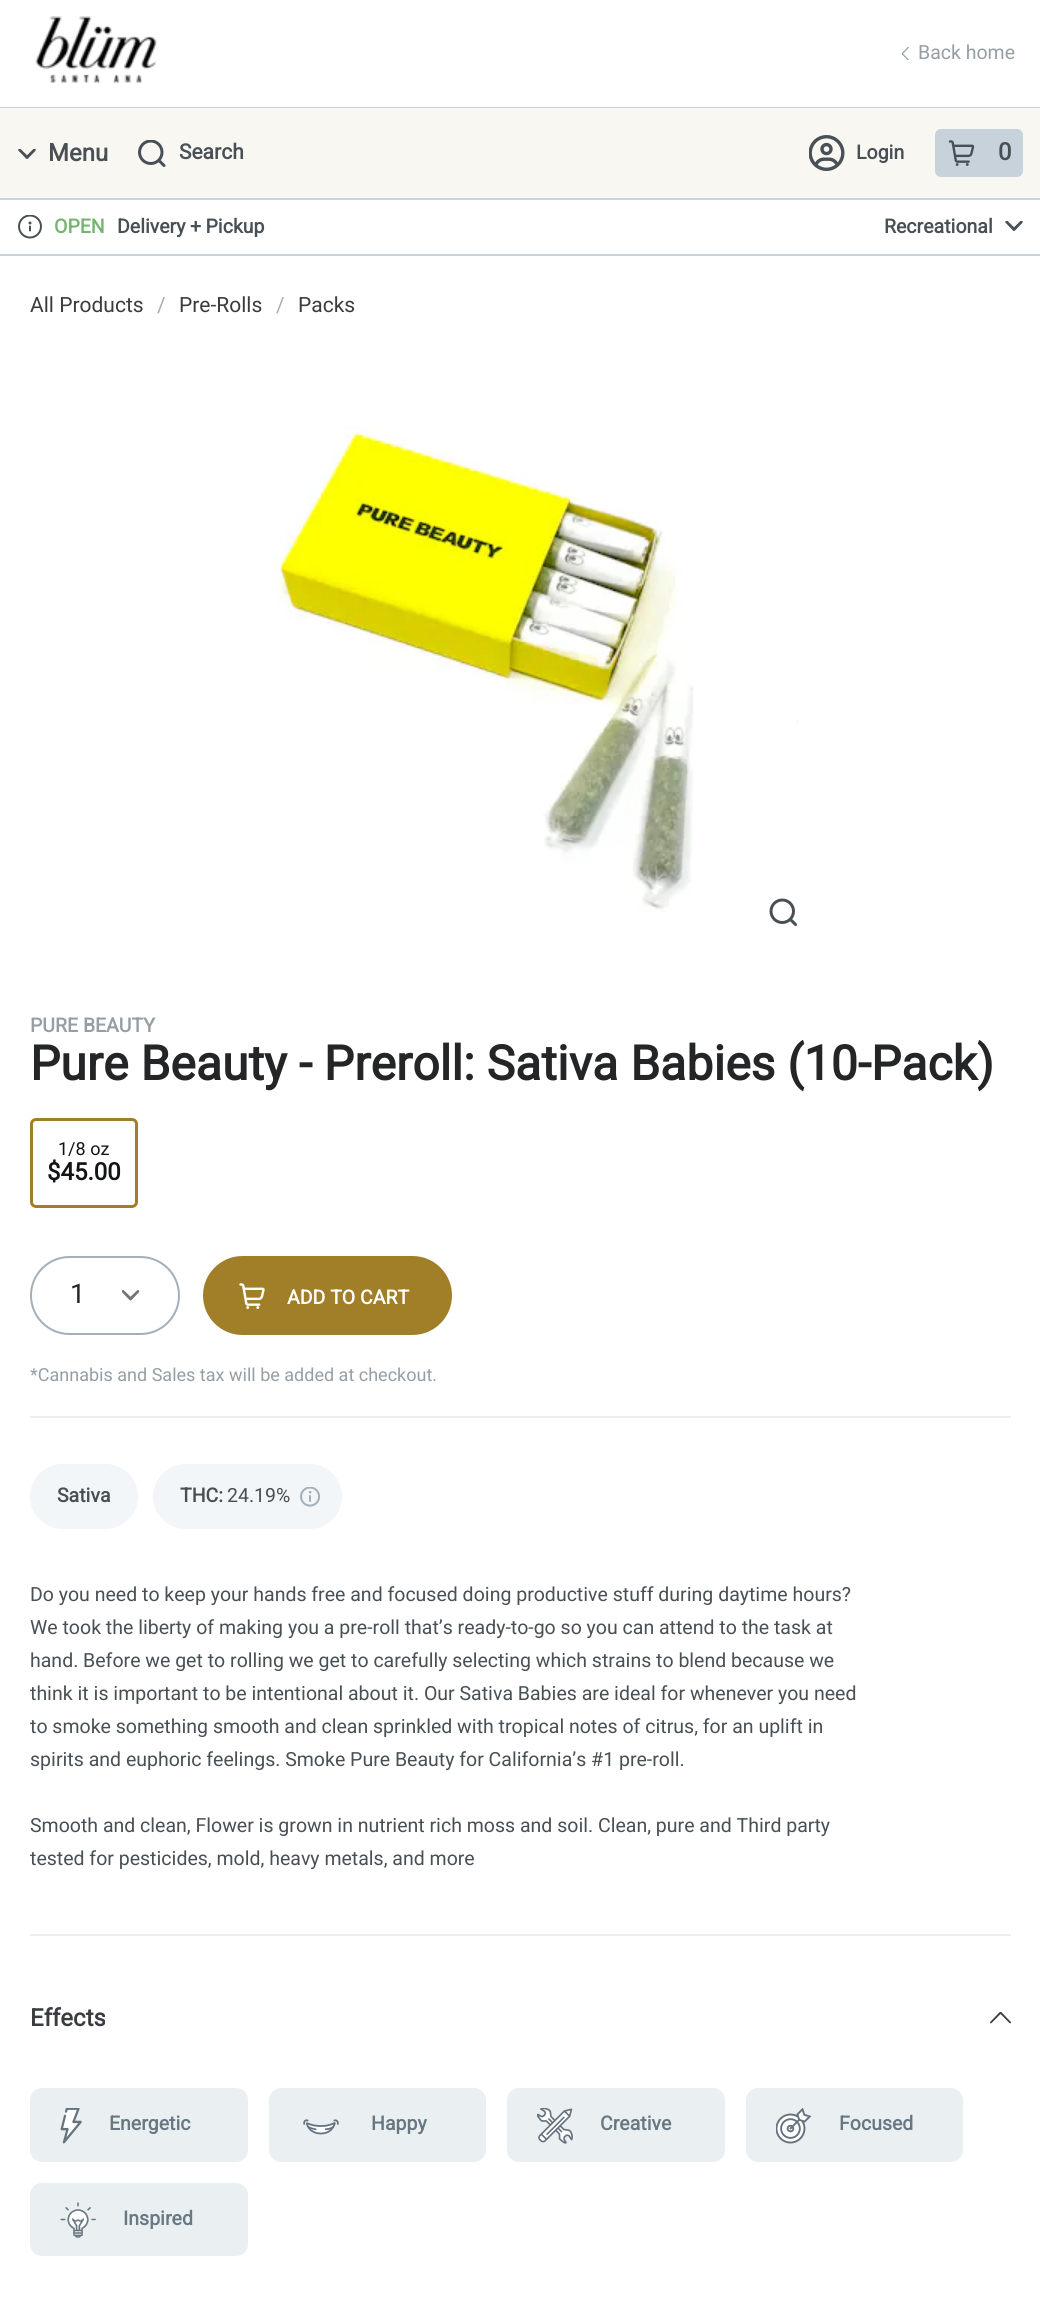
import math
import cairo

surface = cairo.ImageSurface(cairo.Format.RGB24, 1040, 2322)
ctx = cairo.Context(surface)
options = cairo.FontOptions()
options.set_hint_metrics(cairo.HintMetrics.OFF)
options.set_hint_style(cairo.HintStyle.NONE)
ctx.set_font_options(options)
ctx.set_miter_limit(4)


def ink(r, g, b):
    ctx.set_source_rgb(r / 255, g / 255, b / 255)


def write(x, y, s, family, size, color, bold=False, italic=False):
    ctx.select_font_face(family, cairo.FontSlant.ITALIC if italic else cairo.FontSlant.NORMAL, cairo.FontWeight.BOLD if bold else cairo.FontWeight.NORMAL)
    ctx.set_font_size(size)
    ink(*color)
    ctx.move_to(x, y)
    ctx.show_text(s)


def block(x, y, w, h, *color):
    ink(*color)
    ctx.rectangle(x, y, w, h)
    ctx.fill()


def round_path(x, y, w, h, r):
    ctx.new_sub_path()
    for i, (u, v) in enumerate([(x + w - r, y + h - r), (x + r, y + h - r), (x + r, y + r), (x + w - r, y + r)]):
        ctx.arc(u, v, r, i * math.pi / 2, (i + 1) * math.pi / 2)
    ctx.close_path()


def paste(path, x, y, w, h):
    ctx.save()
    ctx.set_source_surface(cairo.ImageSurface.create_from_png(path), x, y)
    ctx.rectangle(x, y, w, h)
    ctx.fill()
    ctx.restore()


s1 = dict(family="Heebo", size=19.5, color=(150, 158, 165))
s2 = dict(family="Heebo", size=24, color=(72, 80, 85), bold=True)
s3 = dict(family="Heebo", size=21, color=(72, 80, 85), bold=True)
s4 = dict(family="Heebo", size=19.5, color=(72, 80, 85), bold=True)
s5 = dict(family="Heebo", size=19.5, color=(116, 181, 110), bold=True)
s6 = dict(family="Heebo", size=21, color=(57, 61, 64))
s7 = dict(family="Heebo", size=21, color=(163, 175, 186))
s8 = dict(family="Heebo", size=19.5, color=(150, 158, 165), bold=True)
s9 = dict(family="Heebo", size=48, color=(36, 37, 38), bold=True)
s10 = dict(family="Heebo", size=18, color=(18, 21, 22))
s11 = dict(family="Heebo", size=24, color=(18, 21, 22), bold=True)
s12 = dict(family="Heebo", size=27, color=(36, 37, 38))
s13 = dict(family="Heebo", size=19.5, color=(255, 255, 255), bold=True)
s14 = dict(family="Heebo", size=18, color=(150, 158, 165))
s15 = dict(family="Heebo", size=19.5, color=(72, 80, 85))
s16 = dict(family="Heebo", size=24, color=(57, 61, 64), bold=True)
s17 = dict(family="Heebo", size=19.5, color=(103, 120, 130), bold=True)

ink(255, 255, 255)
ctx.paint()
block(0, 107, 1040, 1, 197, 208, 215)
paste("pic1.png", 35, 16, 122, 67)
paste("pic2.png", 902, 47, 7, 13)
write(918, 59, "Back home", **s1)
block(0, 108, 1040, 90, 248, 247, 242)
block(0, 198, 1040, 2, 200, 210, 219)
paste("pic3.png", 18, 149, 18, 10)
write(48, 161, "Menu", **s2)
paste("pic4.png", 138, 140, 28, 27)
write(179, 159, "Search", **s3)
paste("pic5.png", 809, 135, 36, 36)
write(856, 159, "Login", **s4)
ink(200, 210, 219)
round_path(935, 129, 88, 48, 6)
ctx.fill()
paste("pic6.png", 948, 140, 27, 26)
write(998, 160, "0", **s2)
block(0, 254, 1040, 2, 200, 210, 219)
ctx.save()
ctx.rectangle(18, 215, 24, 24)
ctx.clip()
ctx.arc(30, 226.5, 11, 0, 2 * math.pi)
ink(72, 80, 85)
ctx.stroke()
ctx.restore()
ctx.new_path()
ctx.move_to(30, 226.5)
ctx.line_to(30, 230.5)
ink(72, 80, 85)
ctx.set_line_cap(cairo.LineCap.ROUND)
ctx.stroke()
ctx.arc(30, 223, 1.5, 0, 2 * math.pi)
ctx.fill()
write(54, 233, "OPEN", **s5)
write(117, 233, "Delivery + Pickup", **s4)
write(884, 233, "Recreational", **s4)
paste("pic7.png", 1005, 221, 18, 10)
write(30, 312, "All Products", **s6)
write(157, 312, "/", **s7)
write(179, 312, "Pre-Rolls", **s6)
write(276, 312, "/", **s7)
write(298, 312, "Packs", **s6)
paste("pic8.png", 272, 426, 526, 486)
paste("pic9.png", 769, 898, 28, 28)
write(30, 1032, "PURE BEAUTY", **s8)
write(30, 1080, "Pure Beauty - Preroll: Sativa Babies (10-Pack)", **s9)
round_path(31.5, 1119.5, 105, 87, 4.5)
ink(161, 126, 40)
ctx.set_line_width(3)
ctx.set_line_cap(cairo.LineCap.BUTT)
ctx.stroke()
write(58, 1155, "1/8 oz", **s10)
write(47, 1180, "$45.00", **s11)
round_path(31, 1257, 148, 77, 38.5)
ink(163, 175, 186)
ctx.set_line_width(2)
ctx.stroke()
write(70, 1303, "1", **s12)
paste("pic10.png", 122, 1290, 18, 11)
ink(161, 126, 40)
round_path(203, 1256, 249, 79, 39.5)
ctx.fill()
paste("pic11.png", 239, 1283, 26, 26)
write(287, 1304, "ADD TO CART", **s13)
write(30, 1381, "*Cannabis and Sales tax will be added at checkout.", **s14)
block(30, 1416, 981, 2, 234, 239, 242)
ink(242, 246, 248)
round_path(30, 1464, 108, 65, 32.5)
ctx.fill()
write(57, 1502, "Sativa", **s4)
ink(242, 246, 248)
round_path(153, 1464, 189, 65, 32.5)
ctx.fill()
write(180, 1502, "THC:", **s4)
write(227, 1502, "24.19%", **s15)
paste("pic12.png", 300, 1487, 21, 20)
write(30, 1601, "Do you need to keep your hands free and focused doing productive stuff during daytime hours?", **s15)
write(30, 1634, "We took the liberty of making you a pre-roll that’s ready-to-go so you can attend to the task at", **s15)
write(30, 1667, "hand. Before we get to rolling we get to carefully selecting which strains to blend because we", **s15)
write(30, 1700, "think it is important to be intentional about it. Our Sativa Babies are ideal for whenever you need", **s15)
write(30, 1733, "to smoke something smooth and clean sprinkled with tropical notes of citrus, for an uplift in", **s15)
write(30, 1766, "spirits and euphoric feelings. Smoke Pure Beauty for California’s #1 pre-roll.", **s15)
write(30, 1832, "Smooth and clean, Flower is grown in nutrient rich moss and soil. Clean, pure and Third party", **s15)
write(30, 1865, "tested for pesticides, mold, heavy metals, and more", **s15)
block(30, 1934, 981, 2, 234, 239, 242)
write(30, 2026, "Effects", **s16)
paste("pic13.png", 990, 2012, 21, 12)
ink(234, 239, 242)
round_path(30, 2088, 218, 74, 12)
ctx.fill()
paste("pic14.png", 60, 2108, 22, 36)
write(109, 2130, "Energetic", **s17)
ink(234, 239, 242)
round_path(269, 2088, 217, 74, 12)
ctx.fill()
paste("pic15.png", 303, 2119, 36, 16)
write(371, 2130, "Happy", **s17)
ink(234, 239, 242)
round_path(507, 2088, 218, 74, 12)
ctx.fill()
paste("pic16.png", 537, 2108, 36, 36)
write(600, 2130, "Creative", **s17)
ink(234, 239, 242)
round_path(746, 2088, 217, 74, 12)
ctx.fill()
paste("pic17.png", 776, 2108, 36, 36)
write(839, 2130, "Focused", **s17)
ink(234, 239, 242)
round_path(30, 2183, 218, 73, 12)
ctx.fill()
paste("pic18.png", 60, 2202, 36, 36)
write(123, 2225, "Inspired", **s17)
surface.write_to_png("screenshot.png")
